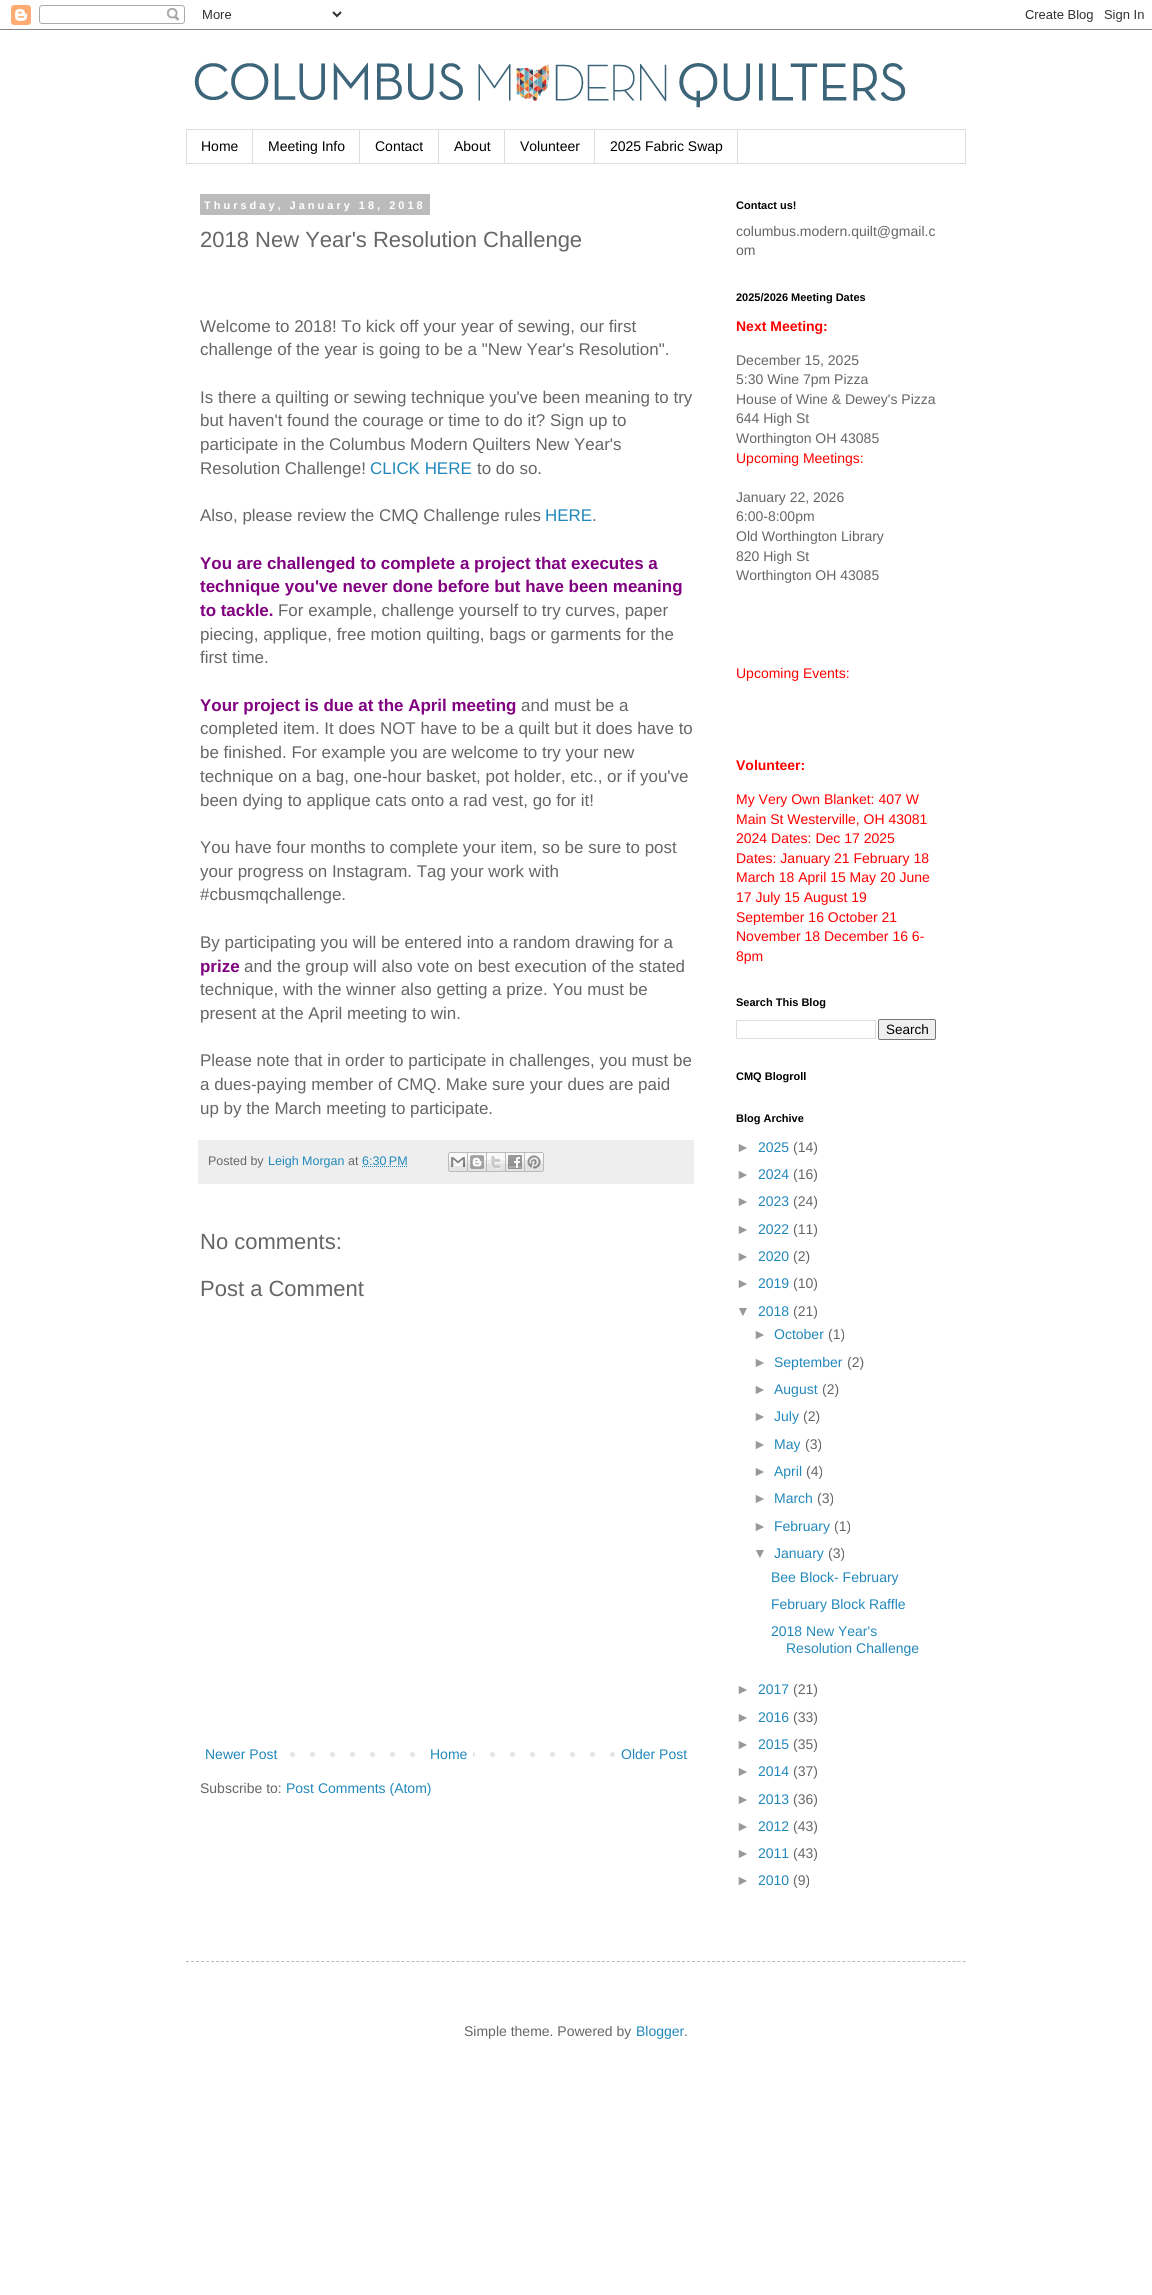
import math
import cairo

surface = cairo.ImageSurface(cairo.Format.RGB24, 1152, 2295)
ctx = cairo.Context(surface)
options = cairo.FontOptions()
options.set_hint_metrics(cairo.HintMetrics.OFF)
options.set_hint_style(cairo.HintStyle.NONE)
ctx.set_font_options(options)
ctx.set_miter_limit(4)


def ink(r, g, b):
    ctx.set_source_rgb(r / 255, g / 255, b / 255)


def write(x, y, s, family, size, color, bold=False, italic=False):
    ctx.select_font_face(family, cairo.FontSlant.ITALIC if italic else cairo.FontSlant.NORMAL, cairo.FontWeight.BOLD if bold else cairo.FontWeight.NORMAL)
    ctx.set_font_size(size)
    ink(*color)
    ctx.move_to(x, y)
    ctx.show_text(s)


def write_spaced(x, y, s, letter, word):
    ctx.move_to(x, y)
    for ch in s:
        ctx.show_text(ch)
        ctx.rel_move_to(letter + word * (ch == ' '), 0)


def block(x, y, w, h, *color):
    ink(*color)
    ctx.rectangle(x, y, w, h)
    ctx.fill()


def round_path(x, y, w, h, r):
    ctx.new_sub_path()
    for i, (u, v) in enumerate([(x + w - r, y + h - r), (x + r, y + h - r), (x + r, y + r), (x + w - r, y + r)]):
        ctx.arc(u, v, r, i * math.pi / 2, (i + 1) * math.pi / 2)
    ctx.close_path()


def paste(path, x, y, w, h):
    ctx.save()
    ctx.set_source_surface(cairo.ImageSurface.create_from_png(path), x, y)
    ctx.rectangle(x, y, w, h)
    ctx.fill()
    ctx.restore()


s1 = dict(family="Liberation Sans", size=14, color=(0, 0, 0))
s2 = dict(family="Liberation Sans", size=22, color=(102, 102, 102))
s3 = dict(family="Liberation Sans", size=16.95, color=(102, 102, 102))
s4 = dict(family="Liberation Sans", size=16.95, color=(34, 136, 187))
s5 = dict(family="Liberation Sans", size=16.95, color=(128, 0, 128), bold=True)
s6 = dict(family="Liberation Sans", size=12.5, color=(102, 102, 102))
s7 = dict(family="Liberation Sans", size=12.5, color=(34, 136, 187))
s8 = dict(family="Liberation Sans", size=14, color=(34, 136, 187))
s9 = dict(family="Liberation Sans", size=14, color=(102, 102, 102))
s10 = dict(family="Liberation Sans", size=11, color=(0, 0, 0), bold=True)
s11 = dict(family="Liberation Sans", size=14, color=(255, 0, 0), bold=True)
s12 = dict(family="Liberation Sans", size=14, color=(255, 0, 0))
s13 = dict(family="Liberation Sans", size=13.5, color=(0, 0, 0))
s14 = dict(family="Liberation Sans", size=14, color=(153, 153, 153))

ink(255, 255, 255)
ctx.paint()
paste("pic1.png", 0, 5, 1152, 25)
paste("pic2.png", 194, 62, 712, 46)
ctx.rectangle(186.5, 129.5, 779, 34)
ink(221, 221, 221)
ctx.set_line_width(1)
ctx.stroke()
block(252, 130, 1, 33, 221, 221, 221)
write(201, 151, "Home", **s1)
block(359, 130, 1, 33, 221, 221, 221)
write(268, 151, "Meeting Info", **s1)
block(438, 130, 1, 33, 221, 221, 221)
write(375, 151, "Contact", **s1)
block(504, 130, 1, 33, 221, 221, 221)
write(454, 151, "About", **s1)
block(594, 130, 1, 33, 221, 221, 221)
write(520, 151, "Volunteer", **s1)
block(737, 130, 1, 33, 221, 221, 221)
write(610, 151, "2025 Fabric Swap", **s1)
block(200, 194, 230, 21, 187, 187, 187)
ctx.select_font_face("Liberation Sans", cairo.FontSlant.NORMAL, cairo.FontWeight.BOLD)
ctx.set_font_size(11)
ink(255, 255, 255)
write_spaced(204, 209, "Thursday, January 18, 2018", 3, 0)
write(200, 247, "2018 New Year's Resolution Challenge", **s2)
write(200, 332, "Welcome to 2018! To kick off your year of sewing, our first", **s3)
write(200, 355, "challenge of the year is going to be a \"New Year's Resolution\".", **s3)
write(200, 403, "Is there a quilting or sewing technique you've been meaning to try", **s3)
write(200, 426, "but haven't found the courage or time to do it? Sign up to", **s3)
write(200, 450, "participate in the Columbus Modern Quilters New Year's", **s3)
write(200, 474, "Resolution Challenge!", **s3)
write(370, 474, "CLICK HERE", **s4)
write(477, 474, "to do so.", **s3)
write(200, 521, "Also, please review the CMQ Challenge rules", **s3)
write(545, 521, "HERE", **s4)
write(592, 521, ".", **s3)
write(200, 569, "You are challenged to complete a project that executes a", **s5)
write(200, 592, "technique you've never done before but have been meaning", **s5)
write(200, 616, "to tackle.", **s5)
write(278, 616, "For example, challenge yourself to try curves, paper", **s3)
write(200, 640, "piecing, applique, free motion quilting, bags or garments for the", **s3)
write(200, 663, "first time.", **s3)
write(200, 711, "Your project is due at the April meeting", **s5)
write(521, 711, "and must be a", **s3)
write(200, 734, "completed item. It does NOT have to be a quilt but it does have to", **s3)
write(200, 758, "be finished. For example you are welcome to try your new", **s3)
write(200, 782, "technique on a bag, one-hour basket, pot holder, etc., or if you've", **s3)
write(200, 806, "been dying to applique cats onto a rad vest, go for it!", **s3)
write(200, 853, "You have four months to complete your item, so be sure to post", **s3)
write(200, 877, "your progress on Instagram. Tag your work with", **s3)
write(200, 900, "#cbusmqchallenge.", **s3)
write(200, 948, "By participating you will be entered into a random drawing for a", **s3)
write(200, 972, "prize", **s5)
write(244, 972, "and the group will also vote on best execution of the stated", **s3)
write(200, 995, "technique, with the winner also getting a prize. You must be", **s3)
write(200, 1019, "present at the April meeting to win.", **s3)
write(200, 1066, "Please note that in order to participate in challenges, you must be", **s3)
write(200, 1090, "a dues-paying member of CMQ. Make sure your dues are paid", **s3)
write(200, 1114, "up by the March meeting to participate.", **s3)
block(198, 1140, 496, 44, 238, 238, 238)
write(208, 1165, "Posted by", **s6)
write(268, 1165, "Leigh Morgan", **s7)
write(348, 1165, "at", **s6)
write(362, 1165, "6:30 PM", **s7)
ctx.new_path()
ctx.move_to(362, 1166.5)
ctx.line_to(408, 1166.5)
ctx.set_dash([1, 1])
ctx.stroke()
paste("pic3.png", 448, 1152, 20, 20)
paste("pic4.png", 468, 1152, 19, 20)
paste("pic5.png", 487, 1152, 19, 20)
paste("pic6.png", 506, 1152, 19, 20)
paste("pic7.png", 525, 1152, 19, 20)
write(200, 1249, "No comments:", **s2)
write(200, 1296, "Post a Comment", **s2)
paste("pic8.png", 290, 1752, 325, 5)
write(205, 1759, "Newer Post", **s8)
block(430, 1752, 43, 5, 255, 255, 255)
write(430, 1759, "Home", **s8)
write(621, 1759, "Older Post", **s8)
write(200, 1793, "Subscribe to:", **s9)
write(286, 1793, "Post Comments (Atom)", **s8)
write(736, 209, "Contact us!", **s10)
write(736, 236, "columbus.modern.quilt@gmail.c", **s9)
write(736, 255, "om", **s9)
write(736, 301, "2025/2026 Meeting Dates", **s10)
write(736, 331, "Next Meeting:", **s11)
write(736, 365, "December 15, 2025", **s9)
write(736, 384, "5:30 Wine 7pm Pizza", **s9)
write(736, 404, "House of Wine & Dewey's Pizza", **s9)
write(736, 423, "644 High St", **s9)
write(736, 443, "Worthington OH 43085", **s9)
write(736, 463, "Upcoming Meetings:", **s12)
write(736, 502, "January 22, 2026", **s9)
write(736, 521, "6:00-8:00pm", **s9)
write(736, 541, "Old Worthington Library", **s9)
write(736, 561, "820 High St", **s9)
write(736, 580, "Worthington OH 43085", **s9)
write(736, 678, "Upcoming Events:", **s12)
write(736, 770, "Volunteer:", **s11)
write(736, 804, "My Very Own Blanket: 407 W", **s12)
write(736, 824, "Main St Westerville, OH 43081", **s12)
write(736, 843, "2024 Dates: Dec 17 2025", **s12)
write(736, 863, "Dates: January 21 February 18", **s12)
write(736, 882, "March 18 April 15 May 20 June", **s12)
write(736, 902, "17 July 15 August 19", **s12)
write(736, 922, "September 16 October 21", **s12)
write(736, 941, "November 18 December 16 6-", **s12)
write(736, 961, "8pm", **s12)
write(736, 1006, "Search This Blog", **s10)
ctx.rectangle(736.5, 1020.5, 139, 18)
ink(221, 221, 221)
ctx.set_dash([])
ctx.stroke()
ink(239, 239, 239)
round_path(878.5, 1019.5, 57, 20, 1.5)
ctx.fill_preserve()
ink(118, 118, 118)
ctx.stroke()
write(886, 1034, "Search", **s13)
write(736, 1080, "CMQ Blogroll", **s10)
write(736, 1122, "Blog Archive", **s10)
write(736, 1152, "►", **s14)
write(758, 1152, "2025", **s8)
write(793, 1152, "(14)", **s9)
write(736, 1179, "►", **s14)
write(758, 1179, "2024", **s8)
write(793, 1179, "(16)", **s9)
write(736, 1206, "►", **s14)
write(758, 1206, "2023", **s8)
write(793, 1206, "(24)", **s9)
write(736, 1234, "►", **s14)
write(758, 1234, "2022", **s8)
write(793, 1234, "(11)", **s9)
write(736, 1261, "►", **s14)
write(758, 1261, "2020", **s8)
write(793, 1261, "(2)", **s9)
write(736, 1288, "►", **s14)
write(758, 1288, "2019", **s8)
write(793, 1288, "(10)", **s9)
write(736, 1316, "▼", **s14)
write(758, 1316, "2018", **s8)
write(793, 1316, "(21)", **s9)
write(753, 1339, "►", **s14)
write(774, 1339, "October", **s8)
write(828, 1339, "(1)", **s9)
write(753, 1367, "►", **s14)
write(774, 1367, "September", **s8)
write(847, 1367, "(2)", **s9)
write(753, 1394, "►", **s14)
write(774, 1394, "August", **s8)
write(822, 1394, "(2)", **s9)
write(753, 1421, "►", **s14)
write(774, 1421, "July", **s8)
write(803, 1421, "(2)", **s9)
write(753, 1449, "►", **s14)
write(774, 1449, "May", **s8)
write(805, 1449, "(3)", **s9)
write(753, 1476, "►", **s14)
write(774, 1476, "April", **s8)
write(806, 1476, "(4)", **s9)
write(753, 1503, "►", **s14)
write(774, 1503, "March", **s8)
write(817, 1503, "(3)", **s9)
write(753, 1531, "►", **s14)
write(774, 1531, "February", **s8)
write(834, 1531, "(1)", **s9)
write(753, 1558, "▼", **s14)
write(774, 1558, "January", **s8)
write(828, 1558, "(3)", **s9)
write(771, 1582, "Bee Block- February", **s8)
write(771, 1609, "February Block Raffle", **s8)
write(771, 1636, "2018 New Year's", **s8)
write(786, 1653, "Resolution Challenge", **s8)
write(736, 1694, "►", **s14)
write(758, 1694, "2017", **s8)
write(793, 1694, "(21)", **s9)
write(736, 1722, "►", **s14)
write(758, 1722, "2016", **s8)
write(793, 1722, "(33)", **s9)
write(736, 1749, "►", **s14)
write(758, 1749, "2015", **s8)
write(793, 1749, "(35)", **s9)
write(736, 1776, "►", **s14)
write(758, 1776, "2014", **s8)
write(793, 1776, "(37)", **s9)
write(736, 1804, "►", **s14)
write(758, 1804, "2013", **s8)
write(793, 1804, "(36)", **s9)
write(736, 1831, "►", **s14)
write(758, 1831, "2012", **s8)
write(793, 1831, "(43)", **s9)
write(736, 1858, "►", **s14)
write(758, 1858, "2011", **s8)
write(793, 1858, "(43)", **s9)
write(736, 1885, "►", **s14)
write(758, 1885, "2010", **s8)
write(793, 1885, "(9)", **s9)
ctx.new_path()
ctx.move_to(186, 1961.5)
ctx.line_to(966, 1961.5)
ink(187, 187, 187)
ctx.set_dash([3, 2.01])
ctx.stroke()
write(464, 2036, "Simple theme. Powered by", **s9)
write(636, 2036, "Blogger", **s8)
write(684, 2036, ".", **s9)
surface.write_to_png("screenshot.png")
